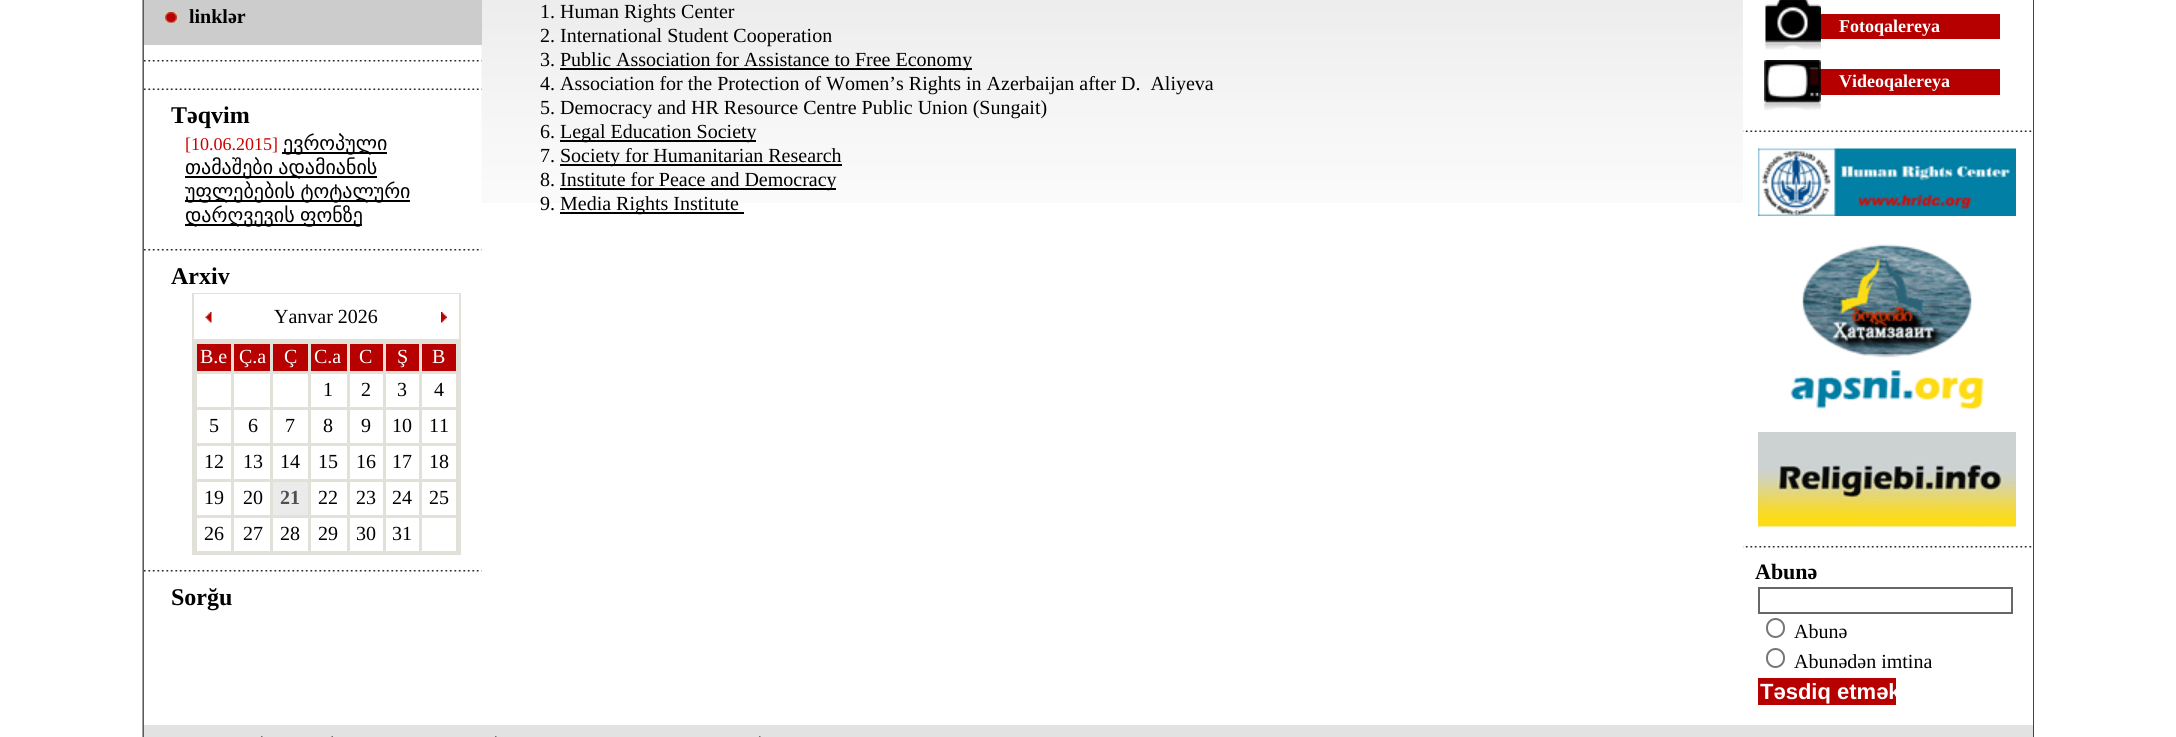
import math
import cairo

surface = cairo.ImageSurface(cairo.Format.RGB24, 2176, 737)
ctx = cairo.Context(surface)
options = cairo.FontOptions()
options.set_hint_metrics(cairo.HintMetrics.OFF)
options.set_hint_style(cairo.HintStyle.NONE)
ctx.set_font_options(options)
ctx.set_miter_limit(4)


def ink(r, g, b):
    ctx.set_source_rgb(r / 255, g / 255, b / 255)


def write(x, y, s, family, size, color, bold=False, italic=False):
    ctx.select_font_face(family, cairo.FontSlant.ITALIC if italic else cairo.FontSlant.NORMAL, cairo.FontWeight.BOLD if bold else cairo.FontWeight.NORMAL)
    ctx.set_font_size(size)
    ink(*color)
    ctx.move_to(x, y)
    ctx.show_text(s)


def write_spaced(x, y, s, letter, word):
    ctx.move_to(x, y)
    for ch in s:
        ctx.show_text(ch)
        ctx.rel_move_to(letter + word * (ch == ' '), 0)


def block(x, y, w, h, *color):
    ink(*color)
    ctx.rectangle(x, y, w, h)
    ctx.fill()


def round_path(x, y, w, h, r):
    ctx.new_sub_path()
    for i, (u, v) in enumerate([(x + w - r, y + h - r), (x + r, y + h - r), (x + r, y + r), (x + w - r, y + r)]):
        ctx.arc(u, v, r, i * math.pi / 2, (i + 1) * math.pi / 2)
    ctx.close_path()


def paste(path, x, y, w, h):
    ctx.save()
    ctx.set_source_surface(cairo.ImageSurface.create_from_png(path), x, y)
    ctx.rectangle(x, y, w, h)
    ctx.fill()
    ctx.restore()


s1 = dict(family="Liberation Serif", size=20, color=(0, 0, 0), bold=True)
s2 = dict(family="Liberation Serif", size=24, color=(0, 0, 0), bold=True)
s3 = dict(family="Liberation Serif", size=18, color=(204, 0, 0))
s4 = dict(family="DejaVu Sans", size=20, color=(0, 0, 0))
s5 = dict(family="Liberation Serif", size=20, color=(0, 0, 0))
s6 = dict(family="Liberation Serif", size=20, color=(255, 255, 255))
s7 = dict(family="Liberation Serif", size=20, color=(79, 79, 79), bold=True)
s8 = dict(family="Liberation Serif", size=18, color=(255, 255, 255), bold=True)
s9 = dict(family="Liberation Serif", size=22, color=(0, 0, 0), bold=True)
s10 = dict(family="Liberation Sans", size=22, color=(255, 255, 255), bold=True)

ink(255, 255, 255)
ctx.paint()
paste("pic1.png", 142, 0, 1892, 737)
block(144, 0, 1889, 725, 255, 255, 255)
paste("pic8.png", 481, 0, 1262, 203)
block(144, 0, 338, 45, 204, 204, 204)
paste("pic2.png", 165, 12, 12, 11)
write(189, 23, "linklər", **s1)
paste("pic3.png", 144, 60, 338, 2)
paste("pic4.png", 144, 88, 338, 2)
write(171, 123, "Təqvim", **s2)
write(185, 150, "[10.06.2015]", **s3)
block(282, 152, 105, 2, 0, 0, 0)
write(283, 150, "ევროპული", **s4)
block(185, 176, 192, 2, 0, 0, 0)
write_spaced(185, 174, "თამაშები ადამიანის", 0, -1)
block(185, 200, 225, 2, 0, 0, 0)
write_spaced(185, 198, "უფლებების ტოტალური", 0, -1)
block(185, 224, 177, 2, 0, 0, 0)
write_spaced(185, 222, "დარღვევის ფონზე", 0, -1)
paste("pic5.png", 144, 249, 338, 2)
write(171, 284, "Arxiv", **s2)
block(192, 293, 269, 262, 226, 225, 217)
block(194, 294, 265, 45, 255, 255, 255)
paste("pic6.png", 205, 312, 7, 11)
write(274, 323, "Yanvar 2026", **s5)
paste("pic7.png", 441, 312, 6, 11)
block(197, 344, 34, 27, 183, 0, 0)
write(200, 363, "B.e", **s6)
block(234, 344, 36, 27, 183, 0, 0)
write(239, 363, "Ç.a", **s6)
block(273, 344, 35, 27, 183, 0, 0)
write(284, 363, "Ç", **s6)
block(311, 344, 36, 27, 183, 0, 0)
write(314, 363, "C.a", **s6)
block(350, 344, 33, 27, 183, 0, 0)
write(359, 363, "C", **s6)
block(386, 344, 33, 27, 183, 0, 0)
write(397, 363, "Ş", **s6)
block(422, 344, 34, 27, 183, 0, 0)
write(432, 363, "В", **s6)
block(197, 374, 34, 33, 255, 255, 255)
block(234, 374, 36, 33, 255, 255, 255)
block(273, 374, 35, 33, 255, 255, 255)
block(311, 374, 36, 33, 255, 255, 255)
write(323, 396, "1", **s5)
block(350, 374, 33, 33, 255, 255, 255)
write(361, 396, "2", **s5)
block(386, 374, 33, 33, 255, 255, 255)
write(397, 396, "3", **s5)
block(422, 374, 34, 33, 255, 255, 255)
write(434, 396, "4", **s5)
block(197, 410, 34, 33, 255, 255, 255)
write(209, 432, "5", **s5)
block(234, 410, 36, 33, 255, 255, 255)
write(248, 432, "6", **s5)
block(273, 410, 35, 33, 255, 255, 255)
write(285, 432, "7", **s5)
block(311, 410, 36, 33, 255, 255, 255)
write(323, 432, "8", **s5)
block(350, 410, 33, 33, 255, 255, 255)
write(361, 432, "9", **s5)
block(386, 410, 33, 33, 255, 255, 255)
write(392, 432, "10", **s5)
block(422, 410, 34, 33, 255, 255, 255)
write(429, 432, "11", **s5)
block(197, 446, 34, 33, 255, 255, 255)
write(204, 468, "12", **s5)
block(234, 446, 36, 33, 255, 255, 255)
write(243, 468, "13", **s5)
block(273, 446, 35, 33, 255, 255, 255)
write(280, 468, "14", **s5)
block(311, 446, 36, 33, 255, 255, 255)
write(318, 468, "15", **s5)
block(350, 446, 33, 33, 255, 255, 255)
write(356, 468, "16", **s5)
block(386, 446, 33, 33, 255, 255, 255)
write(392, 468, "17", **s5)
block(422, 446, 34, 33, 255, 255, 255)
write(429, 468, "18", **s5)
block(197, 482, 34, 33, 255, 255, 255)
write(204, 504, "19", **s5)
block(234, 482, 36, 33, 255, 255, 255)
write(243, 504, "20", **s5)
block(273, 482, 35, 33, 235, 235, 235)
write(280, 504, "21", **s7)
block(311, 482, 36, 33, 255, 255, 255)
write(318, 504, "22", **s5)
block(350, 482, 33, 33, 255, 255, 255)
write(356, 504, "23", **s5)
block(386, 482, 33, 33, 255, 255, 255)
write(392, 504, "24", **s5)
block(422, 482, 34, 33, 255, 255, 255)
write(429, 504, "25", **s5)
block(197, 518, 34, 33, 255, 255, 255)
write(204, 540, "26", **s5)
block(234, 518, 36, 33, 255, 255, 255)
write(243, 540, "27", **s5)
block(273, 518, 35, 33, 255, 255, 255)
write(280, 540, "28", **s5)
block(311, 518, 36, 33, 255, 255, 255)
write(318, 540, "29", **s5)
block(350, 518, 33, 33, 255, 255, 255)
write(356, 540, "30", **s5)
block(386, 518, 33, 33, 255, 255, 255)
write(392, 540, "31", **s5)
block(422, 518, 34, 33, 255, 255, 255)
paste("pic5.png", 144, 570, 338, 2)
write(171, 605, "Sorğu", **s2)
write(540, 18, "1. Human Rights Center", **s5)
write(540, 42, "2. International Student Cooperation", **s5)
write(540, 66, "3.", **s5)
block(560, 68, 412, 2, 0, 0, 0)
write(560, 66, "Public Association for Assistance to Free Economy", **s5)
write(540, 90, "4. Association for the Protection of Women’s Rights in Azerbaijan after D.  Aliyeva", **s5)
write(540, 114, "5. Democracy and HR Resource Centre Public Union (Sungait)", **s5)
write(540, 138, "6.", **s5)
block(560, 140, 196, 2, 0, 0, 0)
write(560, 138, "Legal Education Society", **s5)
write(540, 162, "7.", **s5)
block(560, 164, 282, 2, 0, 0, 0)
write(560, 162, "Society for Humanitarian Research", **s5)
write(540, 186, "8.", **s5)
block(560, 188, 276, 2, 0, 0, 0)
write(560, 186, "Institute for Peace and Democracy", **s5)
write(540, 210, "9.", **s5)
block(560, 212, 184, 2, 0, 0, 0)
write(560, 210, "Media Rights Institute", **s5)
paste("pic9.png", 1764, 0, 57, 50)
block(1821, 14, 179, 25, 182, 0, 0)
write(1839, 32, "Fotoqalereya", **s8)
paste("pic10.png", 1764, 60, 57, 51)
block(1821, 69, 179, 26, 182, 0, 0)
write(1839, 87, "Videoqalereya", **s8)
paste("pic11.png", 1743, 130, 289, 2)
paste("pic12.png", 1758, 148, 258, 68)
paste("pic13.png", 1790, 244, 194, 166)
paste("pic14.png", 1758, 432, 258, 95)
paste("pic15.png", 1743, 546, 289, 2)
write(1755, 579, "Abunə", **s9)
ctx.rectangle(1759, 588, 253, 25)
ink(103, 103, 103)
ctx.stroke()
round_path(1767, 619, 17, 18, 8.5)
ink(118, 118, 118)
ctx.stroke()
write(1794, 638, "Abunə", **s5)
round_path(1767, 649, 17, 18, 8.5)
ink(118, 118, 118)
ctx.stroke()
write(1794, 668, "Abunədən imtina", **s5)
block(1758, 678, 138, 27, 183, 0, 0)
ctx.save()
ctx.rectangle(1758, 678, 138, 27)
ctx.clip()
write(1760, 699, "Təsdiq etmək", **s10)
ctx.restore()
block(144, 725, 1889, 12, 226, 226, 226)
paste("pic16.png", 261, 736, 2, 1)
paste("pic17.png", 331, 736, 2, 1)
paste("pic16.png", 495, 736, 2, 1)
paste("pic16.png", 759, 736, 2, 1)
surface.write_to_png("screenshot.png")
